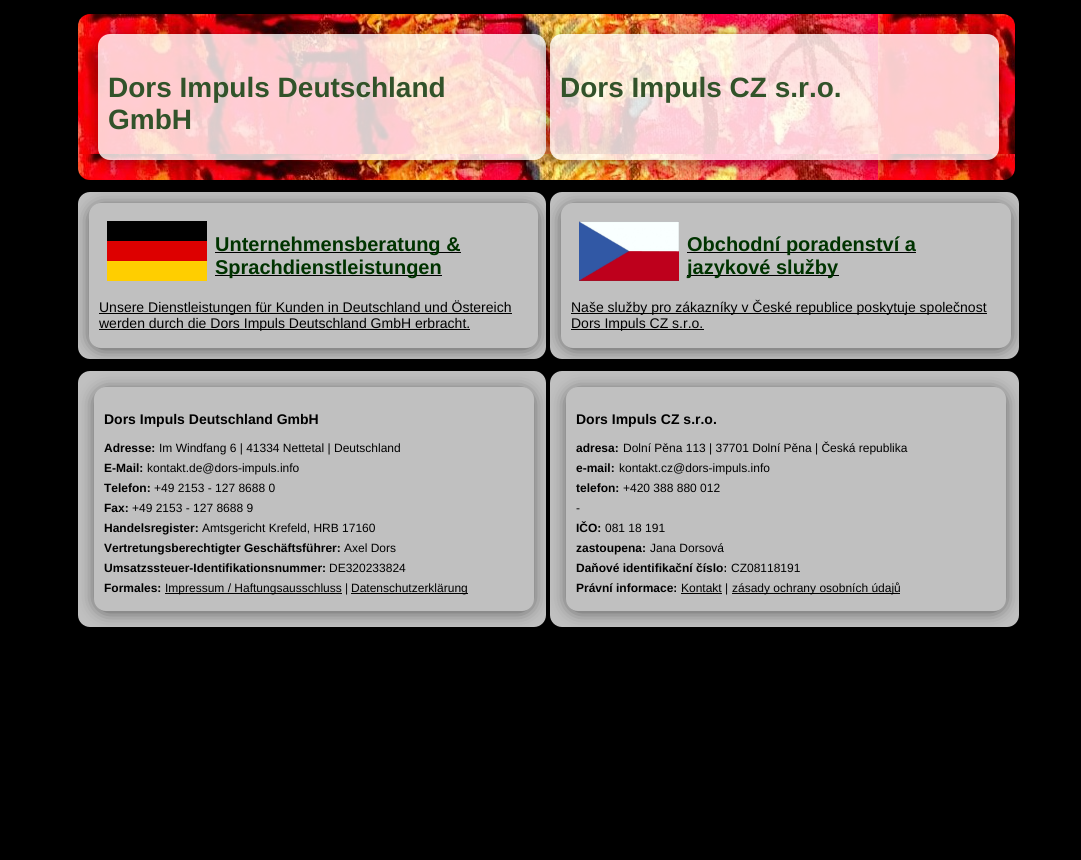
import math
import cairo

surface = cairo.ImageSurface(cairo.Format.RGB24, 1081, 860)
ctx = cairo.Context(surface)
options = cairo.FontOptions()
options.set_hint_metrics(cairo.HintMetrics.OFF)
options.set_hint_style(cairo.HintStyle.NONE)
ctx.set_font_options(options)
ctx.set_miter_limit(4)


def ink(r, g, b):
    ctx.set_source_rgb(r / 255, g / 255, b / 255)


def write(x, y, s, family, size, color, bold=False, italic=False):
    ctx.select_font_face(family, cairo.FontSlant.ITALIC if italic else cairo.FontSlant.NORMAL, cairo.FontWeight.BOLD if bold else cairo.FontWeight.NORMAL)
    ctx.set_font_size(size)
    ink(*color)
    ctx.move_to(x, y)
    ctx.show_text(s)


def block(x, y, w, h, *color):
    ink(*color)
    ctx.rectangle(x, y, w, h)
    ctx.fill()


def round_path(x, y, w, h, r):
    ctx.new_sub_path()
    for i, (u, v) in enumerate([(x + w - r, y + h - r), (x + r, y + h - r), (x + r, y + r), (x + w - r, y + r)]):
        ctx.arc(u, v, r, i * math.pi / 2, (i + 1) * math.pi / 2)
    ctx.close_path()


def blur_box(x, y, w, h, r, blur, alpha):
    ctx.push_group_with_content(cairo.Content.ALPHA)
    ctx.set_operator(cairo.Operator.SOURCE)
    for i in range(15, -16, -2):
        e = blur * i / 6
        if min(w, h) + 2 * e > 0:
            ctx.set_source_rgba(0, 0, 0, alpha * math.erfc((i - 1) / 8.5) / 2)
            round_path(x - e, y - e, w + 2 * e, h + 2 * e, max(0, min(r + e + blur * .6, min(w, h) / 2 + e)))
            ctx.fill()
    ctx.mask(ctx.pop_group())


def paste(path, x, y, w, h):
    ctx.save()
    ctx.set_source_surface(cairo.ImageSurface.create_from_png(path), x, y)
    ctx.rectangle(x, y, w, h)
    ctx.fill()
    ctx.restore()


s1 = dict(family="Liberation Sans", size=28, color=(50, 83, 42), bold=True)
s2 = dict(family="Liberation Sans", size=20, color=(0, 51, 0), bold=True)
s3 = dict(family="Liberation Sans", size=14, color=(0, 0, 0))
s4 = dict(family="Liberation Sans", size=14, color=(0, 0, 0), bold=True)
s5 = dict(family="Liberation Sans", size=12, color=(0, 0, 0), bold=True)
s6 = dict(family="Liberation Sans", size=12, color=(0, 0, 0))

ink(0, 0, 0)
ctx.paint()
paste("pic1.png", 78, 14, 937, 166)
ctx.save()
ctx.set_fill_rule(cairo.FillRule.EVEN_ODD)
ctx.new_path()
ctx.move_to(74, 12)
ctx.line_to(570, 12)
ctx.line_to(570, 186)
ctx.line_to(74, 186)
ctx.close_path()
ctx.move_to(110, 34)
ctx.line_to(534, 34)
ctx.curve_to(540.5, 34, 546, 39.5, 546, 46)
ctx.line_to(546, 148)
ctx.curve_to(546, 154.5, 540.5, 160, 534, 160)
ctx.line_to(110, 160)
ctx.curve_to(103.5, 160, 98, 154.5, 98, 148)
ctx.line_to(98, 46)
ctx.curve_to(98, 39.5, 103.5, 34, 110, 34)
ctx.close_path()
ctx.clip()
blur_box(102, 40, 440, 118, 8, 9, 0.6)
ctx.restore()
ctx.set_source_rgba(1, 1, 1, 0.8)
round_path(98, 34, 448, 126, 12)
ctx.fill()
write(108, 97, "Dors Impuls Deutschland", **s1)
write(108, 129, "GmbH", **s1)
ctx.save()
ctx.set_fill_rule(cairo.FillRule.EVEN_ODD)
ctx.new_path()
ctx.move_to(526, 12)
ctx.line_to(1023, 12)
ctx.line_to(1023, 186)
ctx.line_to(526, 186)
ctx.close_path()
ctx.move_to(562, 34)
ctx.line_to(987, 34)
ctx.curve_to(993.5, 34, 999, 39.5, 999, 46)
ctx.line_to(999, 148)
ctx.curve_to(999, 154.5, 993.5, 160, 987, 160)
ctx.line_to(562, 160)
ctx.curve_to(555.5, 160, 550, 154.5, 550, 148)
ctx.line_to(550, 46)
ctx.curve_to(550, 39.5, 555.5, 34, 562, 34)
ctx.close_path()
ctx.clip()
ink(0, 0, 0)
blur_box(554, 40, 441, 118, 8, 9, 0.6)
ctx.restore()
ctx.set_source_rgba(1, 1, 1, 0.8)
round_path(550, 34, 449, 126, 12)
ctx.fill()
write(560, 97, "Dors Impuls CZ s.r.o.", **s1)
ink(192, 192, 192)
round_path(78, 192, 468, 167, 12)
ctx.fill()
ink(0, 0, 0)
blur_box(93, 209, 441, 137, 8, 9, 0.75)
ink(192, 192, 192)
round_path(89, 203, 449, 145, 12)
ctx.fill()
paste("pic2.png", 107, 221, 100, 60)
block(215, 252, 246, 1, 0, 0, 0)
write(215, 251, "Unternehmensberatung &", **s2)
block(215, 275, 227, 1, 0, 0, 0)
write(215, 274, "Sprachdienstleistungen", **s2)
block(99, 313, 413, 1, 0, 0, 0)
write(99, 312, "Unsere Dienstleistungen für Kunden in Deutschland und Östereich", **s3)
block(99, 329, 371, 1, 0, 0, 0)
write(99, 328, "werden durch die Dors Impuls Deutschland GmbH erbracht.", **s3)
ink(192, 192, 192)
round_path(550, 192, 469, 167, 12)
ctx.fill()
ink(0, 0, 0)
blur_box(565, 209, 442, 137, 8, 9, 0.75)
ink(192, 192, 192)
round_path(561, 203, 450, 145, 12)
ctx.fill()
paste("pic3.png", 579, 221, 100, 60)
block(687, 252, 229, 1, 0, 0, 0)
write(687, 251, "Obchodní poradenství a", **s2)
block(687, 275, 152, 1, 0, 0, 0)
write(687, 274, "jazykové služby", **s2)
block(571, 313, 416, 1, 0, 0, 0)
write(571, 312, "Naše služby pro zákazníky v České republice poskytuje společnost", **s3)
block(571, 329, 133, 1, 0, 0, 0)
write(571, 328, "Dors Impuls CZ s.r.o.", **s3)
ink(192, 192, 192)
round_path(78, 371, 468, 256, 12)
ctx.fill()
ink(0, 0, 0)
blur_box(98, 393, 432, 216, 8, 9, 0.75)
ink(192, 192, 192)
round_path(94, 387, 440, 224, 12)
ctx.fill()
write(104, 424, "Dors Impuls Deutschland GmbH", **s4)
write(104, 452, "Adresse:", **s5)
write(159, 452, "Im Windfang 6 | 41334 Nettetal | Deutschland", **s6)
write(104, 472, "E-Mail:", **s5)
write(147, 472, "kontakt.de@dors-impuls.info", **s6)
write(104, 492, "Telefon:", **s5)
write(154, 492, "+49 2153 - 127 8688 0", **s6)
write(104, 512, "Fax:", **s5)
write(132, 512, "+49 2153 - 127 8688 9", **s6)
write(104, 532, "Handelsregister:", **s5)
write(202, 532, "Amtsgericht Krefeld, HRB 17160", **s6)
write(104, 552, "Vertretungsberechtigter Geschäftsführer:", **s5)
write(344, 552, "Axel Dors", **s6)
write(104, 572, "Umsatzssteuer-Identifikationsnummer:", **s5)
write(329, 572, "DE320233824", **s6)
write(104, 592, "Formales:", **s5)
block(165, 593, 177, 1, 0, 0, 0)
write(165, 592, "Impressum / Haftungsausschluss |", **s6)
block(351, 593, 117, 1, 0, 0, 0)
write(351, 592, "Datenschutzerklärung", **s6)
ink(192, 192, 192)
round_path(550, 371, 469, 256, 12)
ctx.fill()
ink(0, 0, 0)
blur_box(570, 393, 432, 216, 8, 9, 0.75)
ink(192, 192, 192)
round_path(566, 387, 440, 224, 12)
ctx.fill()
write(576, 424, "Dors Impuls CZ s.r.o.", **s4)
write(576, 452, "adresa:", **s5)
write(623, 452, "Dolní Pěna 113 | 37701 Dolní Pěna | Česká republika", **s6)
write(576, 472, "e-mail:", **s5)
write(619, 472, "kontakt.cz@dors-impuls.info", **s6)
write(576, 492, "telefon:", **s5)
write(623, 492, "+420 388 880 012", **s6)
write(576, 512, "-", **s6)
write(576, 532, "IČO:", **s5)
write(605, 532, "081 18 191", **s6)
write(576, 552, "zastoupena:", **s5)
write(650, 552, "Jana Dorsová", **s6)
write(576, 572, "Daňové identifikační číslo:", **s5)
write(731, 572, "CZ08118191", **s6)
write(576, 592, "Právní informace:", **s5)
block(681, 593, 41, 1, 0, 0, 0)
write(681, 592, "Kontakt |", **s6)
block(732, 593, 168, 1, 0, 0, 0)
write(732, 592, "zásady ochrany osobních údajů", **s6)
surface.write_to_png("screenshot.png")
